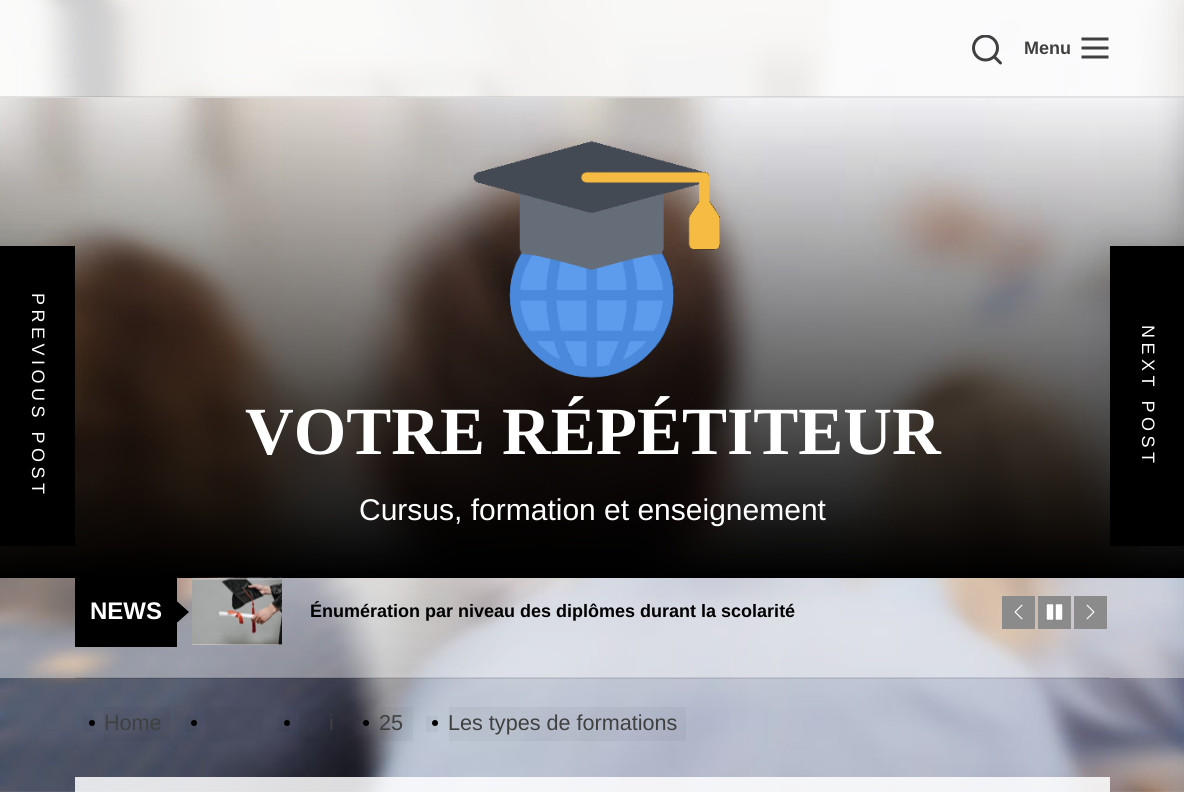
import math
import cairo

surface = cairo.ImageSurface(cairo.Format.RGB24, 1184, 792)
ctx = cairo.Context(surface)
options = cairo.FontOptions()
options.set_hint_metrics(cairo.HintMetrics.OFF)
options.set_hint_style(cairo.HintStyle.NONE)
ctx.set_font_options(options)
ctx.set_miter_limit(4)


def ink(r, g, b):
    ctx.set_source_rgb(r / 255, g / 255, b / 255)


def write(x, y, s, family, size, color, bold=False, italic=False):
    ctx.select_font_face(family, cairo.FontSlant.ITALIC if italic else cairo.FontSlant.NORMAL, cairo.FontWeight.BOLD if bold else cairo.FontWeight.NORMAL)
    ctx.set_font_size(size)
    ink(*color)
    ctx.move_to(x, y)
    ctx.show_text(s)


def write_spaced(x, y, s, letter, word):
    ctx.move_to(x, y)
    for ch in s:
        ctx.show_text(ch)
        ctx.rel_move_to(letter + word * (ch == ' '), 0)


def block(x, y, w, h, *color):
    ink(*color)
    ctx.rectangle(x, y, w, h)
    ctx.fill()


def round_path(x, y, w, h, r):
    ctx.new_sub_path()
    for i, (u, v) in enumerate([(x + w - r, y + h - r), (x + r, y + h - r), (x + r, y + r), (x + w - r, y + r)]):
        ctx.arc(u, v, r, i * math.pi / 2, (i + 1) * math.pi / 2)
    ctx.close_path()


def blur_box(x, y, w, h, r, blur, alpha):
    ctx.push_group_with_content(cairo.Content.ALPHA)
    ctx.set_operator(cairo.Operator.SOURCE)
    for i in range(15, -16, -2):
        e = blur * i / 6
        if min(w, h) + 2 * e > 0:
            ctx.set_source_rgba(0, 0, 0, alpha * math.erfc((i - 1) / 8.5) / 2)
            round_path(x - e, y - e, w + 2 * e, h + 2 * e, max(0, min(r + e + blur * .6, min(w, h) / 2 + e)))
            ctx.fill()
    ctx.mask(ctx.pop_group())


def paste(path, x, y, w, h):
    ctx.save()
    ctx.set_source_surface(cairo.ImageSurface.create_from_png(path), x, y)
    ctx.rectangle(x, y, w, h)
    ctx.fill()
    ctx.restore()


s1 = dict(family="Liberation Sans", size=18, color=(64, 64, 64), bold=True)
s2 = dict(family="Liberation Serif", size=67.5, color=(255, 255, 255), bold=True)
s3 = dict(family="Liberation Sans", size=30, color=(255, 255, 255))
s4 = dict(family="Liberation Sans", size=24, color=(255, 255, 255), bold=True)
s5 = dict(family="Liberation Sans", size=18, color=(0, 0, 0), bold=True)
s6 = dict(family="Liberation Sans", size=21.6, color=(64, 64, 64))

ink(255, 255, 255)
ctx.paint()
paste("pic1.png", 0, 0, 1184, 792)
paste("pic4.png", 0, 97, 1184, 481)
ctx.set_source_rgba(1, 1, 1, 0.7)
ctx.rectangle(0, 0, 1184, 98)
ctx.fill()
ctx.set_source_rgba(0, 0, 0, 0.1)
ctx.rectangle(0, 96, 1184, 2)
ctx.fill()
paste("pic2.png", 972, 35, 30, 30)
write(1024, 54, "Menu", **s1)
paste("pic3.png", 1081, 37, 28, 22)
paste("pic5.png", 473, 141, 247, 237)
write(245, 454, "VOTRE RÉPÉTITEUR", **s2)
write(359, 520, "Cursus, formation et enseignement", **s3)
ctx.set_source_rgba(1, 1, 1, 0.4)
ctx.rectangle(0, 578, 1184, 100)
ctx.fill()
block(75, 578, 102, 69, 0, 0, 0)
write(90, 619, "NEWS", **s4)
ink(0, 0, 0)
ctx.new_path()
ctx.move_to(175.5, 624)
ctx.line_to(175.5, 600)
ctx.line_to(189, 612)
ctx.close_path()
ctx.fill()
paste("pic6.png", 192, 577, 90, 1)
block(192, 579, 90, 66, 241, 241, 241)
paste("pic7.png", 192, 578, 90, 67)
write(310, 617, "Énumération par niveau des diplômes durant la scolarité", **s5)
block(1002, 596, 33, 33, 139, 139, 139)
paste("pic8.png", 1014, 604, 9, 16)
block(1038, 596, 33, 33, 139, 139, 139)
paste("pic9.png", 1046, 604, 17, 16)
block(1074, 596, 33, 33, 139, 139, 139)
paste("pic10.png", 1086, 604, 9, 16)
ctx.set_source_rgba(0, 0, 0, 0.1)
ctx.rectangle(75, 677, 1035, 2)
ctx.fill()
ink(0, 0, 0)
blur_box(1110, 246, 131, 300, 0, 19, 0.1)
block(1110, 246, 74, 300, 0, 0, 0)
ink(0, 0, 0)
blur_box(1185, 0, 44, 792, 0, 15, 0.1)
blur_box(-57, 246, 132, 300, 0, 19, 0.1)
block(0, 246, 75, 300, 0, 0, 0)
ctx.select_font_face("Liberation Sans")
ink(255, 255, 255)
ctx.save()
ctx.translate(32, 293)
ctx.rotate(90 * math.pi / 180)
write_spaced(0, 0, "PREVIOUS POST", 4.5, 0)
ctx.restore()
ctx.save()
ctx.translate(1142, 325)
ctx.rotate(90 * math.pi / 180)
write_spaced(0, 0, "NEXT POST", 4.5, 0)
ctx.restore()
ctx.set_source_rgba(0, 0, 0, 0.04)
ctx.rectangle(83, 716, 12, 16)
ctx.fill()
ctx.rectangle(104, 707, 66, 34)
ctx.fill()
ink(0, 0, 0)
ctx.arc(92, 723, 3, 0, 2 * math.pi)
ctx.fill()
write(104, 730, "Home", **s6)
ctx.set_source_rgba(0, 0, 0, 0.04)
ctx.rectangle(185, 716, 12, 16)
ctx.fill()
ctx.rectangle(206, 707, 57, 34)
ctx.fill()
ink(0, 0, 0)
ctx.arc(194, 723, 3, 0, 2 * math.pi)
ctx.fill()
ctx.set_source_rgba(0, 0, 0, 0.04)
ctx.rectangle(278, 716, 12, 16)
ctx.fill()
ctx.rectangle(299, 707, 38, 34)
ctx.fill()
ink(0, 0, 0)
ctx.arc(287, 723, 3, 0, 2 * math.pi)
ctx.fill()
write(329, 730, "i", **s6)
ctx.set_source_rgba(0, 0, 0, 0.04)
ctx.rectangle(357, 716, 12, 16)
ctx.fill()
ctx.rectangle(380, 707, 33, 34)
ctx.fill()
ink(0, 0, 0)
ctx.arc(366, 723, 3, 0, 2 * math.pi)
ctx.fill()
write(379, 730, "25", **s6)
ctx.set_source_rgba(0, 0, 0, 0.04)
ctx.rectangle(426, 716, 12, 16)
ctx.fill()
ctx.rectangle(449, 707, 237, 34)
ctx.fill()
ink(0, 0, 0)
ctx.arc(435, 723, 3, 0, 2 * math.pi)
ctx.fill()
write(448, 730, "Les types de formations", **s6)
ctx.set_source_rgba(1, 1, 1, 0.85)
ctx.rectangle(75, 777, 1035, 15)
ctx.fill()
surface.write_to_png("screenshot.png")
